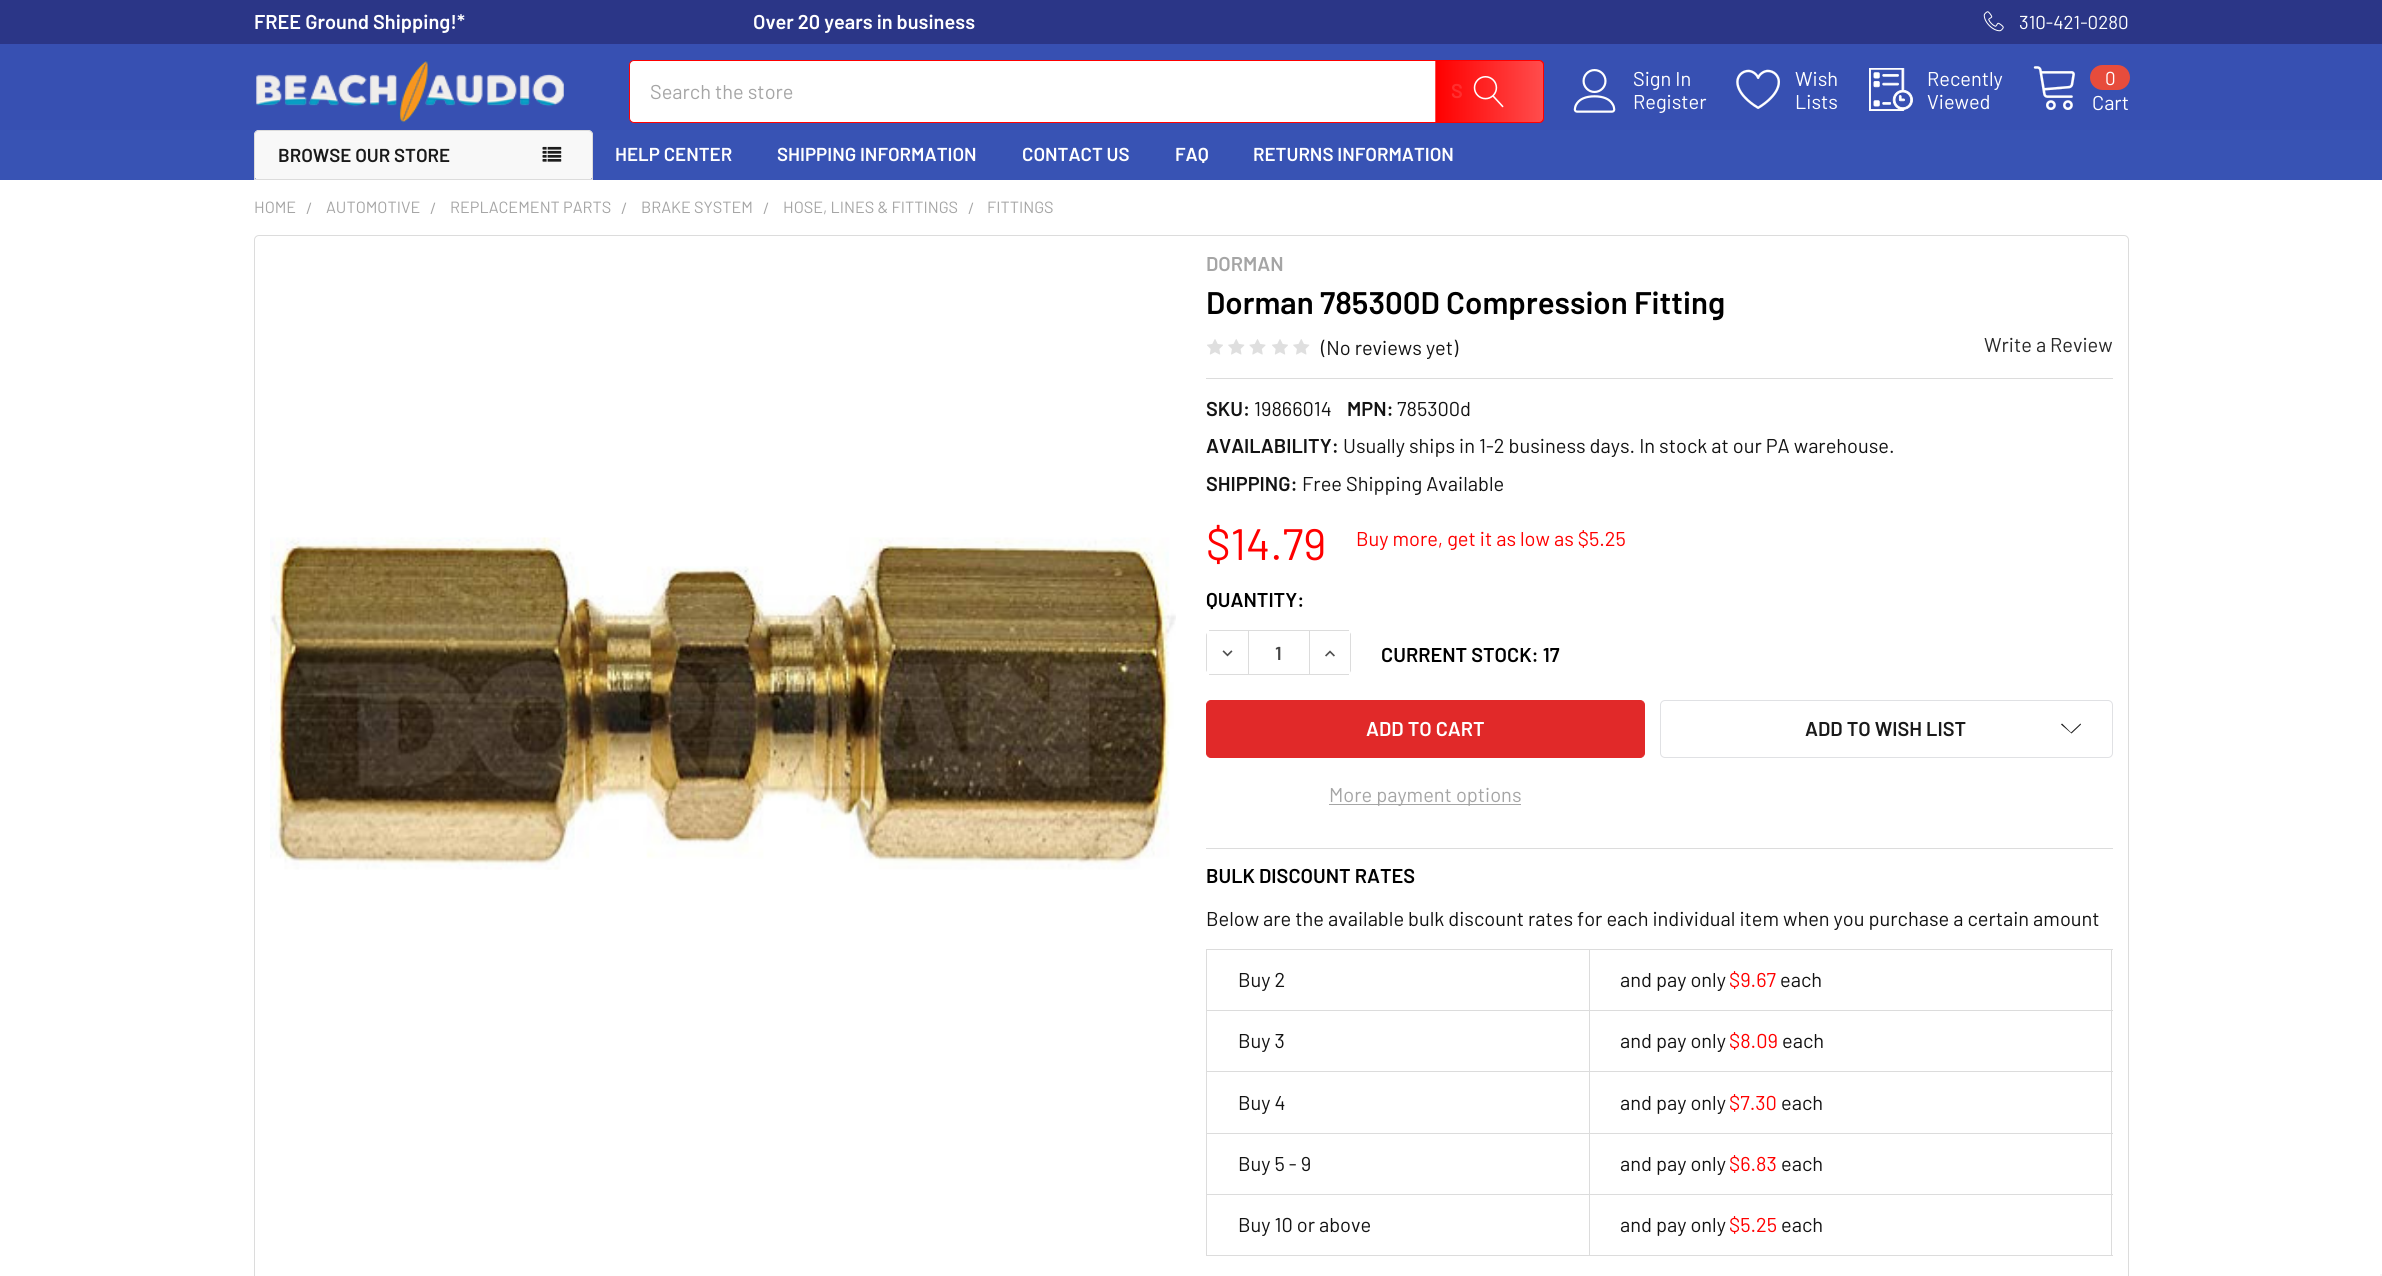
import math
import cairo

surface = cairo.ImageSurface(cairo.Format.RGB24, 2382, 1276)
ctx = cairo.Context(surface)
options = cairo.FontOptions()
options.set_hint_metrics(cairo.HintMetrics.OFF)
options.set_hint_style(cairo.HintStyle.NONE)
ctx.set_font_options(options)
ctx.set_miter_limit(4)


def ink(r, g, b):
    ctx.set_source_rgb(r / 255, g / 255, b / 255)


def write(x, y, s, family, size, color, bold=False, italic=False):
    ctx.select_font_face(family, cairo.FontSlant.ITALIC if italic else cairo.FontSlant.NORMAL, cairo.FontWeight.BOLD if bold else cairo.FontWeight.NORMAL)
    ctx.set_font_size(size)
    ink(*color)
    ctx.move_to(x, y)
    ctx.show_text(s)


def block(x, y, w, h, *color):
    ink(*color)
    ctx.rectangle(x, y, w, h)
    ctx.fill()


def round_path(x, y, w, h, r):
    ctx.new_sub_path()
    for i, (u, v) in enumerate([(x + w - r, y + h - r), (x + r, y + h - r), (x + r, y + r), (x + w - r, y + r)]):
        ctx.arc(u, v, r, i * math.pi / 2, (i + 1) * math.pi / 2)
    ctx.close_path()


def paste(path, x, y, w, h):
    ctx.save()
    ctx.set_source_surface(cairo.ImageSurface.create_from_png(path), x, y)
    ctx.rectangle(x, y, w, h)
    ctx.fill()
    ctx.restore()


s1 = dict(family="Barlow SemiBold", size=20, color=(255, 255, 255))
s2 = dict(family="Barlow", size=18.75, color=(255, 255, 255))
s3 = dict(family="Barlow", size=20, color=(165, 165, 165))
s4 = dict(family="Barlow SemiBold", size=20, color=(255, 46, 46))
s5 = dict(family="Barlow", size=20, color=(255, 255, 255))
s6 = dict(family="Barlow SemiBold", size=18.75, color=(26, 26, 26))
s7 = dict(family="Barlow SemiBold", size=18.75, color=(255, 255, 255))
s8 = dict(family="Barlow", size=16.25, color=(165, 165, 165))
s9 = dict(family="Barlow SemiBold", size=20, color=(165, 165, 165))
s10 = dict(family="Barlow SemiBold", size=31.25, color=(0, 0, 0))
s11 = dict(family="Barlow", size=20, color=(19, 19, 19))
s12 = dict(family="Barlow", size=20, color=(40, 40, 40))
s13 = dict(family="Barlow SemiBold", size=20, color=(19, 19, 19))
s14 = dict(family="Barlow", size=44, color=(255, 0, 0))
s15 = dict(family="Barlow", size=20, color=(255, 0, 0))
s16 = dict(family="Barlow SemiBold", size=20, color=(0, 0, 0))
s17 = dict(family="Barlow SemiBold", size=18.75, color=(69, 69, 69))
s18 = dict(family="Barlow SemiBold", size=20, color=(26, 26, 26))

ink(255, 255, 255)
ctx.paint()
block(0, 45, 2382, 85, 55, 80, 178)
block(0, 0, 2382, 44, 43, 54, 135)
block(0, 44, 2382, 1, 56, 79, 178)
write(254, 29, "FREE Ground Shipping!*", **s1)
write(753, 29, "Over 20 years in business", **s1)
paste("pic1.png", 1983, 11, 21, 21)
write(2019, 29, "310-421-0280", **s2)
paste("pic2.png", 256, 60, 308, 63)
round_path(629.5, 60.5, 914, 62, 4.5)
ctx.fill_preserve()
ink(255, 0, 0)
ctx.set_line_width(1)
ctx.stroke()
write(650, 99, "Search the store", **s3)
ctx.save()
ctx.new_path()
ctx.move_to(1435, 60)
ctx.line_to(1539, 60)
ctx.curve_to(1542, 60, 1544, 62, 1544, 65)
ctx.line_to(1544, 118)
ctx.curve_to(1544, 121, 1542, 123, 1539, 123)
ctx.line_to(1435, 123)
ctx.close_path()
ctx.clip()
gradient = cairo.LinearGradient(1436, 91, 1543, 91)
gradient.add_color_stop_rgba(0, 1, 0, 0, 1)
gradient.add_color_stop_rgba(1, 1, 0, 0, 0.7)
ctx.set_source(gradient)
ctx.rectangle(1436, 60, 107, 63)
ctx.fill()
ctx.restore()
write(1451, 98, "S", **s4)
gradient = cairo.LinearGradient(1330, 91, 1436, 91)
gradient.add_color_stop_rgba(0, 1, 0, 0, 1)
gradient.add_color_stop_rgba(1, 1, 0, 0, 0.7)
ctx.set_source(gradient)
ctx.rectangle(1435, 60, 1, 63)
ctx.fill()
ctx.save()
ctx.new_path()
ctx.move_to(1435, 60)
ctx.line_to(1539, 60)
ctx.curve_to(1542, 60, 1544, 62, 1544, 65)
ctx.line_to(1544, 118)
ctx.curve_to(1544, 121, 1542, 123, 1539, 123)
ctx.line_to(1435, 123)
ctx.close_path()
ctx.clip()
gradient = cairo.LinearGradient(1543, 91, 1649, 91)
gradient.add_color_stop_rgba(0, 1, 0, 0, 1)
gradient.add_color_stop_rgba(1, 1, 0, 0, 0.7)
ctx.set_source(gradient)
ctx.rectangle(1543, 60, 1, 63)
ctx.fill()
ctx.restore()
paste("pic3.png", 1473, 76, 31, 32)
paste("pic4.png", 1573, 69, 43, 44)
write(1633, 86, "Sign In", **s5)
write(1633, 109, "Register", **s5)
paste("pic5.png", 1736, 69, 44, 40)
write(1795, 86, "Wish", **s5)
write(1795, 109, "Lists", **s5)
paste("pic6.png", 1869, 68, 44, 43)
write(1927, 86, "Recently", **s5)
write(1927, 109, "Viewed", **s5)
paste("pic7.png", 2033, 66, 42, 44)
ink(231, 76, 60)
round_path(2090, 65, 40, 25, 12.5)
ctx.fill()
write(2105, 85, "0", **s2)
write(2092, 110, "Cart", **s5)
block(0, 130, 2382, 50, 56, 83, 180)
ink(248, 248, 248)
round_path(254, 130, 339, 50, 5)
ctx.fill()
ctx.new_path()
ctx.move_to(259, 130.5)
ctx.line_to(588, 130.5)
ctx.curve_to(590.5, 130.5, 592.5, 132.5, 592.5, 135)
ctx.line_to(592.5, 179.5)
ctx.line_to(254.5, 179.5)
ctx.line_to(254.5, 135)
ctx.curve_to(254.5, 132.5, 256.5, 130.5, 259, 130.5)
ctx.close_path()
ink(220, 220, 220)
ctx.stroke()
write(278, 162, "BROWSE OUR STORE", **s6)
paste("pic8.png", 542, 146, 20, 16)
write(615, 161, "HELP CENTER", **s7)
write(777, 161, "SHIPPING INFORMATION", **s7)
write(1022, 161, "CONTACT US", **s7)
write(1175, 161, "FAQ", **s7)
write(1253, 161, "RETURNS INFORMATION", **s7)
write(254, 213, "HOME", **s8)
write(306, 214, "/", **s8)
write(326, 213, "AUTOMOTIVE", **s8)
write(430, 214, "/", **s8)
write(450, 213, "REPLACEMENT PARTS", **s8)
write(621, 214, "/", **s8)
write(641, 213, "BRAKE SYSTEM", **s8)
write(763, 214, "/", **s8)
write(783, 213, "HOSE, LINES & FITTINGS", **s8)
write(968, 214, "/", **s8)
write(987, 213, "FITTINGS", **s8)
round_path(254.5, 235.5, 1874, 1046, 4.5)
ink(220, 220, 220)
ctx.stroke()
write(1206, 271, "DORMAN", **s9)
write(1206, 314, "Dorman 785300D Compression Fitting", **s10)
paste("pic9.png", 1207, 339, 16, 16)
paste("pic10.png", 1228, 339, 17, 16)
paste("pic11.png", 1249, 339, 17, 16)
paste("pic9.png", 1272, 339, 16, 16)
paste("pic10.png", 1293, 339, 17, 16)
write(1321, 355, "(No reviews yet)", **s11)
write(1984, 352, "Write a Review", **s12)
block(1206, 378, 907, 1, 220, 220, 220)
write(1206, 416, "SKU:", **s13)
write(1254, 416, "19866014", **s11)
write(1347, 416, "MPN:", **s13)
write(1397, 416, "785300d", **s11)
write(1206, 453, "AVAILABILITY:", **s13)
write(1343, 453, "Usually ships in 1-2 business days. In stock at our PA warehouse.", **s11)
write(1206, 491, "SHIPPING:", **s13)
write(1302, 491, "Free Shipping Available", **s11)
paste("pic12.png", 270, 537, 906, 333)
write(1206, 560, "$14.79", **s14)
write(1356, 546, "Buy more, get it as low as $5.25", **s15)
write(1206, 607, "QUANTITY:", **s16)
block(1209, 630, 140, 1, 220, 220, 220)
block(1209, 674, 140, 1, 220, 220, 220)
block(1248, 631, 1, 43, 220, 220, 220)
ctx.new_path()
ctx.move_to(1207, 633)
ctx.line_to(1207, 672)
ctx.curve_to(1206.5, 671.5, 1206, 670.5, 1206, 670)
ctx.line_to(1206, 635)
ctx.curve_to(1206, 634.5, 1206.5, 633.5, 1207, 633)
ctx.close_path()
ctx.fill()
paste("pic13.png", 1222, 650, 11, 7)
write(1275, 660, "1", **s17)
ink(220, 220, 220)
ctx.new_path()
ctx.move_to(1350, 672.5)
ctx.line_to(1350, 632.5)
ctx.line_to(1351, 634)
ctx.line_to(1351, 671)
ctx.close_path()
ctx.fill()
block(1309, 631, 1, 43, 220, 220, 220)
paste("pic14.png", 1325, 650, 10, 7)
write(1381, 662, "CURRENT STOCK: 17", **s16)
ink(225, 41, 41)
round_path(1206.5, 700.5, 438, 57, 4.5)
ctx.fill_preserve()
ctx.stroke()
write(1366, 736, "ADD TO CART", **s1)
block(1329, 804, 192, 1, 165, 165, 165)
write(1329, 802, "More payment options", **s3)
round_path(1660.5, 700.5, 452, 57, 4.5)
ink(224, 225, 228)
ctx.stroke()
write(1805, 736, "ADD TO WISH LIST", **s18)
ctx.set_fill_rule(cairo.FillRule.EVEN_ODD)
ctx.new_path()
ctx.move_to(2071, 732.5)
ctx.line_to(2080.5, 723.5)
ctx.line_to(2081, 724.5)
ctx.line_to(2071.5, 733.5)
ctx.line_to(2061, 724.5)
ctx.line_to(2062, 723.5)
ctx.close_path()
ctx.fill()
block(1206, 848, 907, 1, 220, 220, 220)
write(1206, 883, "BULK DISCOUNT RATES", **s16)
write(1206, 926, "Below are the available bulk discount rates for each individual item when you purchase a certain amount", **s11)
block(1206, 949, 907, 1, 220, 220, 220)
block(2111, 949, 1, 307, 220, 220, 220)
block(1206, 1255, 907, 1, 220, 220, 220)
block(1206, 949, 1, 307, 220, 220, 220)
block(1206, 1010, 907, 1, 220, 220, 220)
write(1238, 987, "Buy 2", **s11)
write(1620, 987, "and pay only", **s11)
write(1729, 987, "$9.67", **s15)
write(1780, 987, "each", **s11)
block(1206, 1071, 907, 1, 220, 220, 220)
write(1238, 1048, "Buy 3", **s11)
write(1620, 1048, "and pay only", **s11)
write(1729, 1048, "$8.09", **s15)
write(1782, 1048, "each", **s11)
block(1206, 1133, 907, 1, 220, 220, 220)
write(1238, 1110, "Buy 4", **s11)
write(1620, 1110, "and pay only", **s11)
write(1729, 1110, "$7.30", **s15)
write(1781, 1110, "each", **s11)
block(1206, 1194, 907, 1, 220, 220, 220)
write(1238, 1171, "Buy 5 - 9", **s11)
write(1620, 1171, "and pay only", **s11)
write(1729, 1171, "$6.83", **s15)
write(1781, 1171, "each", **s11)
write(1238, 1232, "Buy 10 or above", **s11)
block(1589, 949, 1, 307, 220, 220, 220)
write(1620, 1232, "and pay only", **s11)
write(1729, 1232, "$5.25", **s15)
write(1781, 1232, "each", **s11)
block(2380, 1274, 2, 2, 245, 245, 245)
surface.write_to_png("screenshot.png")
